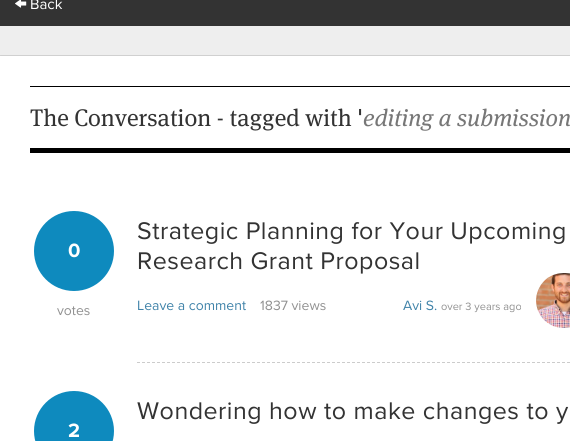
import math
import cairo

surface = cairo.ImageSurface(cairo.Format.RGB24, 570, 441)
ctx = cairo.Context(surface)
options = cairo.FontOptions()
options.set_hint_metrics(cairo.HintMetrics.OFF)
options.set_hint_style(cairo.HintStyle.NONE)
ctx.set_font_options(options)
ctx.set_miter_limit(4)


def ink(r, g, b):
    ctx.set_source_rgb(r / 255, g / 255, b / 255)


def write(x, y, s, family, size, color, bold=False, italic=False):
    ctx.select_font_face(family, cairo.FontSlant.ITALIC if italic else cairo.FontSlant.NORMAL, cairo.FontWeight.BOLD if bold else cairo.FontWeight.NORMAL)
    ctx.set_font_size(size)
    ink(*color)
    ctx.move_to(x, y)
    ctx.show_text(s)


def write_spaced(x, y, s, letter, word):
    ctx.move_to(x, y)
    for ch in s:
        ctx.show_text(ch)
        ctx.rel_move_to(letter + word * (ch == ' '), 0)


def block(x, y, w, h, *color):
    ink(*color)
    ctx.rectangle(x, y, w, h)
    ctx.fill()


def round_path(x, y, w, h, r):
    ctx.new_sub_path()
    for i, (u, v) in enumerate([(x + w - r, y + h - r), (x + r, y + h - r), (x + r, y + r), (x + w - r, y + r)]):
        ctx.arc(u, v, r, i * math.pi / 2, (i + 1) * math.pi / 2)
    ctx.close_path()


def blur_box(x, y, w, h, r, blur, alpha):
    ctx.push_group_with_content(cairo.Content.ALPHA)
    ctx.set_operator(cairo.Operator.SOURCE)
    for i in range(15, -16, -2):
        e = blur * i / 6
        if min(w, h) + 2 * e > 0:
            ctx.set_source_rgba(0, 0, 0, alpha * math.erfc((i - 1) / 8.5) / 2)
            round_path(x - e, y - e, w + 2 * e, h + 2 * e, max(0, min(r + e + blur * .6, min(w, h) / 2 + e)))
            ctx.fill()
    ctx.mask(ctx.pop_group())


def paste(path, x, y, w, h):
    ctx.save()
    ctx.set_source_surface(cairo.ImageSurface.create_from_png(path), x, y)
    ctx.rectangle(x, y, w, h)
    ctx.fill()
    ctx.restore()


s1 = dict(family="Proxima Nova", size=15, color=(255, 255, 255))
s2 = dict(family="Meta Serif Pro", size=24, color=(51, 51, 51))
s3 = dict(family="Meta Serif Pro", size=24, color=(119, 119, 119), italic=True)
s4 = dict(family="Proxima Nova", size=20, color=(255, 255, 255), bold=True)
s5 = dict(family="Proxima Nova", size=14, color=(145, 145, 145))
s6 = dict(family="Proxima Nova", size=14, color=(64, 131, 169))
s7 = dict(family="Proxima Nova", size=11, color=(145, 145, 145))

ink(238, 238, 238)
ctx.paint()
block(0, 0, 570, 26, 51, 51, 51)
paste("pic1.png", 15, 0, 12, 8)
write(30, 9, "Back", **s1)
ink(0, 0, 0)
blur_box(0, 56, 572, 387, 0, 0.5, 0.5)
block(0, 56, 570, 385, 255, 255, 255)
block(30, 86, 540, 1, 0, 0, 0)
block(30, 148, 540, 5, 0, 0, 0)
write(30, 126, "The Conversation - tagged with '", **s2)
write(363, 126, "editing a submission", **s3)
ctx.new_path()
ctx.move_to(137, 362.5)
ctx.line_to(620, 362.5)
ink(204, 204, 204)
ctx.set_line_width(1)
ctx.set_dash([3, 2])
ctx.stroke()
ink(14, 138, 190)
ctx.arc(74, 251, 40, 0, 2 * math.pi)
ctx.fill()
write(68, 257, "0", **s4)
write(57, 315, "votes", **s5)
ctx.set_font_size(25)
ink(51, 51, 51)
write_spaced(137, 239, "Strategic Planning for Your Upcoming", 0.5, 0)
write_spaced(137, 269, "Research Grant Proposal", 0.5, 0)
write(137, 310, "Leave a comment", **s6)
write(260, 310, "1837 views", **s5)
write(403, 310, "Avi S.", **s6)
write(441, 310, "over 3 years ago", **s7)
paste("pic2.png", 536, 273, 34, 55)
ctx.set_font_size(25)
ink(51, 51, 51)
write_spaced(137, 419, "Wondering how to make changes to y", 0.5, 0)
ink(14, 138, 190)
ctx.new_path()
ctx.arc(74, 431, 40, 0, 2 * math.pi)
ctx.fill()
write(68, 437, "2", **s4)
surface.write_to_png("screenshot.png")
